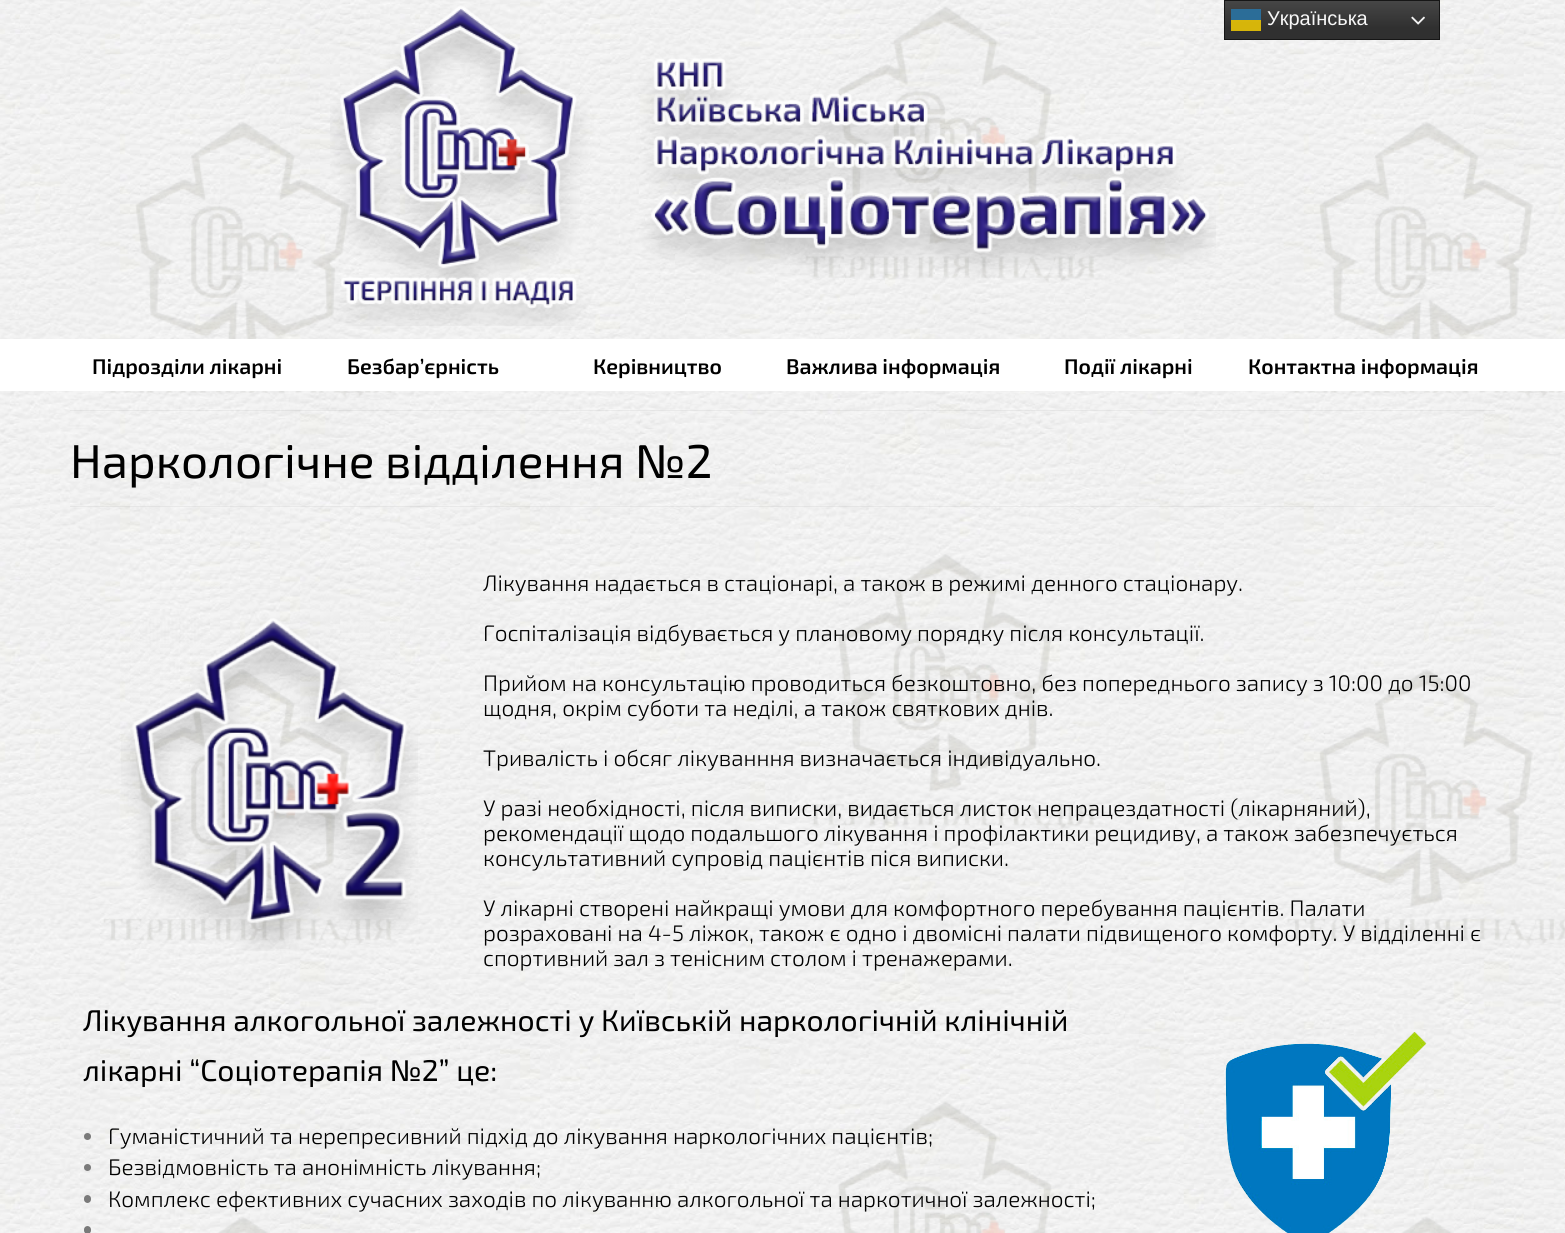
import math
import cairo

surface = cairo.ImageSurface(cairo.Format.RGB24, 1565, 1233)
ctx = cairo.Context(surface)
options = cairo.FontOptions()
options.set_hint_metrics(cairo.HintMetrics.OFF)
options.set_hint_style(cairo.HintStyle.NONE)
ctx.set_font_options(options)
ctx.set_miter_limit(4)


def ink(r, g, b):
    ctx.set_source_rgb(r / 255, g / 255, b / 255)


def write(x, y, s, family, size, color, bold=False, italic=False):
    ctx.select_font_face(family, cairo.FontSlant.ITALIC if italic else cairo.FontSlant.NORMAL, cairo.FontWeight.BOLD if bold else cairo.FontWeight.NORMAL)
    ctx.set_font_size(size)
    ink(*color)
    ctx.move_to(x, y)
    ctx.show_text(s)


def block(x, y, w, h, *color):
    ink(*color)
    ctx.rectangle(x, y, w, h)
    ctx.fill()


def round_path(x, y, w, h, r):
    ctx.new_sub_path()
    for i, (u, v) in enumerate([(x + w - r, y + h - r), (x + r, y + h - r), (x + r, y + r), (x + w - r, y + r)]):
        ctx.arc(u, v, r, i * math.pi / 2, (i + 1) * math.pi / 2)
    ctx.close_path()


def paste(path, x, y, w, h):
    ctx.save()
    ctx.set_source_surface(cairo.ImageSurface.create_from_png(path), x, y)
    ctx.rectangle(x, y, w, h)
    ctx.fill()
    ctx.restore()


s1 = dict(family="Liberation Sans", size=20, color=(247, 247, 247))
s2 = dict(family="Exo 2 SemiBold", size=21.25, color=(0, 0, 0))
s3 = dict(family="Exo 2", size=47.5, color=(0, 0, 0))
s4 = dict(family="Exo 2 Light", size=22.5, color=(0, 0, 0))
s5 = dict(family="Exo 2", size=30, color=(0, 0, 0))

ink(255, 255, 255)
ctx.paint()
paste("pic1.png", 0, 0, 1565, 1233)
gradient = cairo.LinearGradient(1332, 0, 1332, 40)
gradient.add_color_stop_rgba(0, 0.278, 0.278, 0.278, 1)
gradient.add_color_stop_rgba(0.7, 0.188, 0.188, 0.188, 1)
ctx.set_source(gradient)
ctx.rectangle(1225, 1, 214, 38)
ctx.fill()
ctx.rectangle(1224.5, 0.5, 215, 39)
ink(22, 22, 22)
ctx.set_line_width(1)
ctx.stroke()
block(1231, 9, 30, 11, 43, 109, 152)
write(1267, 25, "Українська", **s1)
paste("pic2.png", 1411, 16, 14, 9)
ctx.set_source_rgba(1, 0.835, 0, 0.8)
ctx.rectangle(1231, 20, 30, 11)
ctx.fill()
paste("pic3.png", 330, 5, 886, 321)
block(0, 339, 1565, 52, 255, 255, 255)
write(92, 374, "Підрозділи лікарні", **s2)
write(347, 374, "Безбар’єрність", **s2)
write(593, 374, "Керівництво", **s2)
write(786, 374, "Важлива інформація", **s2)
write(1064, 374, "Події лікарні", **s2)
write(1248, 374, "Контактна інформація", **s2)
ctx.set_source_rgba(0, 0, 0, 0.05)
ctx.rectangle(70, 410, 1425, 1)
ctx.fill()
ctx.rectangle(70, 506, 1425, 1)
ctx.fill()
write(70, 478, "Наркологічне відділення №2", **s3)
write(483, 591, "Лікування надається в стаціонарі, а також в режимі денного стаціонару.", **s4)
paste("pic4.png", 121, 618, 297, 333)
write(483, 641, "Госпіталізація відбувається у плановому порядку після консультації.", **s4)
write(483, 691, "Прийом на консультацію проводиться безкоштовно, без попереднього запису з 10:00 до 15:00", **s4)
write(483, 716, "щодня, окрім суботи та неділі, а також святкових днів.", **s4)
write(483, 766, "Тривалість і обсяг лікуванння визначається індивідуально.", **s4)
write(483, 816, "У разі необхідності, після виписки, видається листок непрацездатності (лікарняний),", **s4)
write(483, 841, "рекомендації щодо подальшого лікування і профілактики рецидиву, а також забезпечується", **s4)
write(483, 866, "консультативний супровід пацієнтів піся виписки.", **s4)
write(483, 916, "У лікарні створені найкращі умови для комфортного перебування пацієнтів. Палати", **s4)
write(483, 941, "розраховані на 4-5 ліжок, також є одно і двомісні палати підвищеного комфорту. У відділенні є", **s4)
write(483, 966, "спортивний зал з тенісним столом і тренажерами.", **s4)
write(83, 1031, "Лікування алкогольної залежності у Київській наркологічній клінічній", **s5)
write(83, 1081, "лікарні “Соціотерапія №2” це:", **s5)
paste("pic5.png", 1225, 1032, 202, 201)
ink(122, 122, 122)
ctx.arc(87.5, 1136.5, 3.5, 0, 2 * math.pi)
ctx.fill()
write(108, 1144, "Гуманістичний та нерепресивний підхід до лікування наркологічних пацієнтів;", **s4)
ink(122, 122, 122)
ctx.new_path()
ctx.arc(87.5, 1167.5, 3.5, 0, 2 * math.pi)
ctx.fill()
write(108, 1175, "Безвідмовність та анонімність лікування;", **s4)
ink(122, 122, 122)
round_path(84, 1195, 7, 8, 3.5)
ctx.fill()
write(108, 1207, "Комплекс ефективних сучасних заходів по лікуванню алкогольної та наркотичної залежності;", **s4)
ink(122, 122, 122)
round_path(84, 1226, 7, 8, 3.5)
ctx.fill()
surface.write_to_png("screenshot.png")
